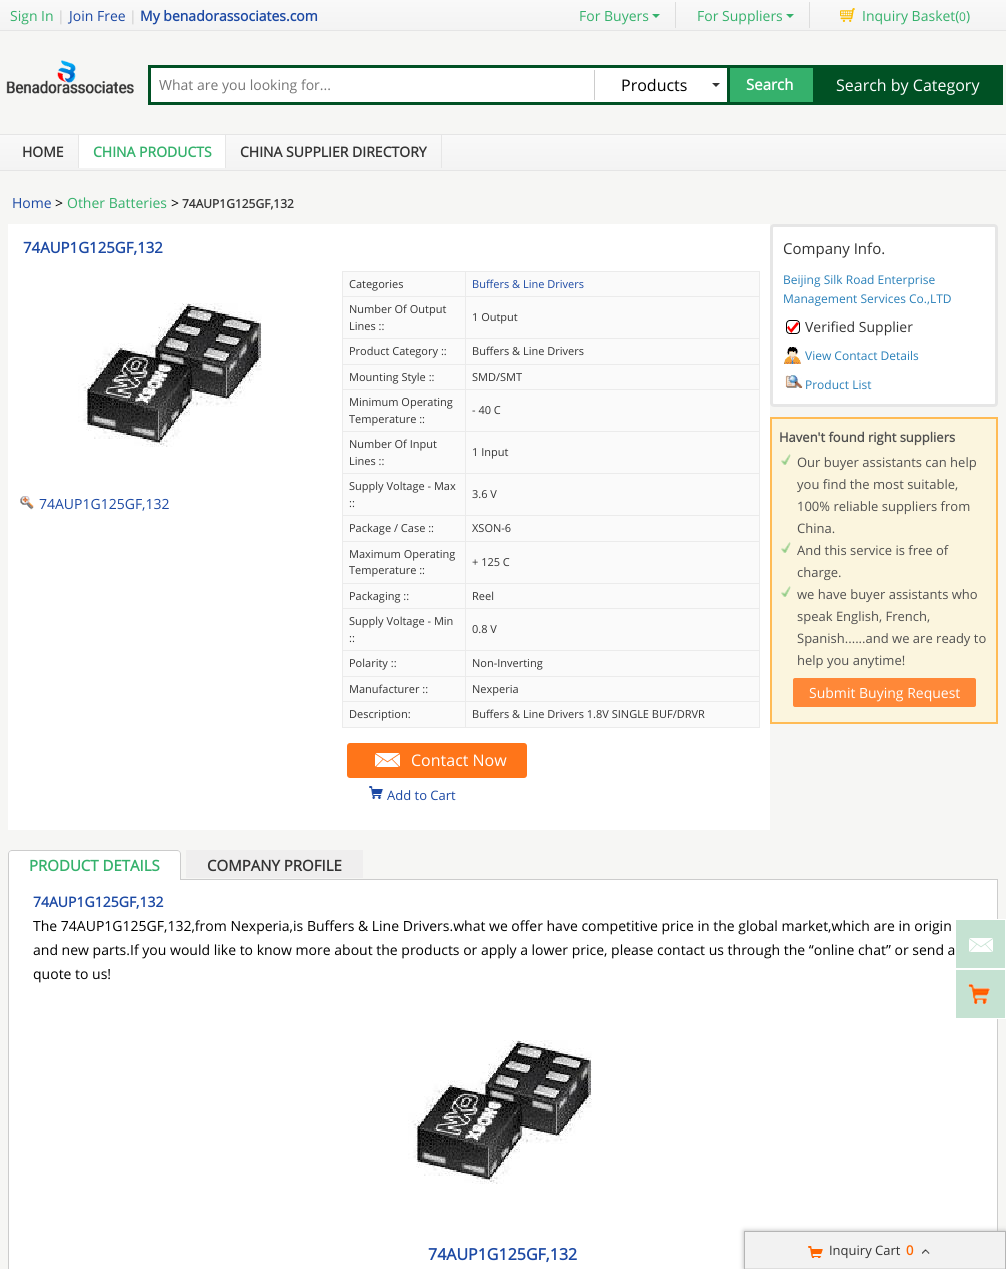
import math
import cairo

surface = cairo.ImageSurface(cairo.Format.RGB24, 1006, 1269)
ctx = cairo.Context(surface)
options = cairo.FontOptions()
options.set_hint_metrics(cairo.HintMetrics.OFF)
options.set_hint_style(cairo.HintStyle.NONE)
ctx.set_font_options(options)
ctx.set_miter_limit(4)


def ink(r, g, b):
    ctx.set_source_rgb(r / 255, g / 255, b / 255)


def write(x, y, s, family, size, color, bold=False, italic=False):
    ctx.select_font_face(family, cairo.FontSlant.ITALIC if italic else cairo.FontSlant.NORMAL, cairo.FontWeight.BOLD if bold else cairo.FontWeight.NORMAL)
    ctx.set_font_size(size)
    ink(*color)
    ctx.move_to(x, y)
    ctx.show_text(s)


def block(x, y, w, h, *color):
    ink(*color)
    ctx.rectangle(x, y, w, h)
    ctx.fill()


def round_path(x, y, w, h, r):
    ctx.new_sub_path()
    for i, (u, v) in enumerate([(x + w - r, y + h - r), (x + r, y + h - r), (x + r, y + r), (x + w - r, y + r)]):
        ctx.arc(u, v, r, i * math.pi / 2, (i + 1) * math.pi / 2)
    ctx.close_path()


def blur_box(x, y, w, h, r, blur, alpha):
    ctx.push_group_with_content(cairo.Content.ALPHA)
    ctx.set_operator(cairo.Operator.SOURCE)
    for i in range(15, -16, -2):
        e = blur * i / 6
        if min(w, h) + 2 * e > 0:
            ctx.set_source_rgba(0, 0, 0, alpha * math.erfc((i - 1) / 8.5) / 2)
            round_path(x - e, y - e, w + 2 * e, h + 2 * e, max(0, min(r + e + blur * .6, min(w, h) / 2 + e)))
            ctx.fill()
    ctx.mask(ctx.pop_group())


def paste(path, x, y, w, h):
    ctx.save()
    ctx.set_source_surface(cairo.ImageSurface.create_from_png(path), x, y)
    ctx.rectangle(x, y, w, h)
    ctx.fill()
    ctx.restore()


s1 = dict(family="Open Sans", size=14, color=(53, 177, 108))
s2 = dict(family="Open Sans", size=14, color=(204, 204, 204))
s3 = dict(family="Open Sans", size=14, color=(28, 73, 164))
s4 = dict(family="Open Sans", size=14, color=(28, 73, 164), bold=True)
s5 = dict(family="Open Sans", size=12, color=(53, 177, 108))
s6 = dict(family="Open Sans", size=14, color=(117, 117, 117))
s7 = dict(family="Open Sans", size=16, color=(0, 0, 0))
s8 = dict(family="Open Sans", size=15, color=(255, 255, 255), bold=True)
s9 = dict(family="Open Sans", size=16, color=(255, 255, 255))
s10 = dict(family="Open Sans", size=14, color=(51, 51, 51), bold=True)
s11 = dict(family="Open Sans", size=14, color=(53, 177, 108), bold=True)
s12 = dict(family="Open Sans", size=14, color=(0, 0, 0))
s13 = dict(family="Open Sans", size=12, color=(51, 51, 51), bold=True)
s14 = dict(family="Open Sans", size=15, color=(28, 73, 164), bold=True)
s15 = dict(family="Open Sans", size=11, color=(51, 51, 51))
s16 = dict(family="Open Sans", size=11, color=(28, 73, 164))
s17 = dict(family="Open Sans", size=13, color=(28, 73, 164))
s18 = dict(family="Open Sans", size=15, color=(51, 51, 51))
s19 = dict(family="Open Sans", size=12, color=(41, 128, 185))
s20 = dict(family="Open Sans", size=14, color=(51, 51, 51))
s21 = dict(family="Open Sans", size=13, color=(80, 80, 80), bold=True)
s22 = dict(family="Open Sans", size=13, color=(80, 80, 80))
s23 = dict(family="Open Sans", size=14, color=(255, 255, 255))
s24 = dict(family="Open Sans", size=15, color=(53, 177, 108), bold=True)
s25 = dict(family="Open Sans", size=15, color=(51, 51, 51), bold=True)
s26 = dict(family="Open Sans", size=16, color=(28, 73, 164), bold=True)
s27 = dict(family="Open Sans", size=13, color=(51, 51, 51))
s28 = dict(family="Open Sans", size=13, color=(255, 102, 0), bold=True)

ink(246, 246, 244)
ctx.paint()
gradient = cairo.LinearGradient(503, 0, 503, 30)
gradient.add_color_stop_rgba(0, 0.976, 0.976, 0.976, 1)
gradient.add_color_stop_rgba(1, 0.953, 0.953, 0.953, 1)
ctx.set_source(gradient)
ctx.rectangle(0, 0, 1006, 30)
ctx.fill()
block(0, 30, 1006, 1, 229, 229, 229)
write(10, 21, "Sign In", **s1)
write(57, 21, "|", **s2)
write(69, 21, "Join Free", **s3)
write(129, 21, "|", **s2)
write(140, 21, "My benadorassociates.com", **s4)
block(675, 2, 1, 26, 221, 221, 221)
write(579, 21, "For Buyers", **s1)
ctx.new_path()
ctx.move_to(652, 14)
ctx.line_to(660, 14)
ctx.line_to(656, 18)
ctx.close_path()
ctx.fill()
block(809, 2, 1, 26, 221, 221, 221)
write(697, 21, "For Suppliers", **s1)
ctx.new_path()
ctx.move_to(786, 14)
ctx.line_to(794, 14)
ctx.line_to(790, 18)
ctx.close_path()
ctx.fill()
paste("pic1.png", 840, 8, 15, 14)
write(862, 21, "Inquiry Basket(", **s1)
write(959, 21, "0", **s5)
write(966, 21, ")", **s1)
paste("pic2.png", 6, 60, 128, 34)
block(151, 68, 443, 34, 255, 255, 255)
ctx.rectangle(149.5, 66.5, 483, 37)
ink(0, 81, 36)
ctx.set_line_width(3)
ctx.stroke()
write(159, 90, "What are you looking for...", **s6)
block(594, 68, 133, 34, 255, 255, 255)
block(634, 65, 96, 3, 0, 81, 36)
block(727, 65, 3, 40, 0, 81, 36)
block(634, 102, 96, 3, 0, 81, 36)
block(594, 70, 1, 30, 204, 204, 204)
write(621, 91, "Products", **s7)
ink(51, 51, 51)
ctx.new_path()
ctx.move_to(712, 83)
ctx.line_to(720, 83)
ctx.line_to(716, 87)
ctx.close_path()
ctx.fill()
block(730, 65, 273, 40, 0, 81, 36)
block(730, 68, 83, 34, 53, 177, 108)
write(746, 90, "Search", **s8)
write(836, 91, "Search by Category", **s9)
gradient = cairo.LinearGradient(503, 135, 503, 170)
gradient.add_color_stop_rgba(0, 0.976, 0.976, 0.976, 1)
gradient.add_color_stop_rgba(1, 0.953, 0.953, 0.953, 1)
ctx.set_source(gradient)
ctx.rectangle(0, 135, 1006, 35)
ctx.fill()
block(0, 134, 1006, 1, 229, 229, 229)
block(0, 170, 1006, 1, 229, 229, 229)
block(78, 135, 1, 33, 230, 230, 230)
write(22, 157, "HOME", **s10)
block(79, 135, 146, 33, 255, 255, 255)
block(225, 135, 1, 33, 230, 230, 230)
write(93, 157, "CHINA PRODUCTS", **s11)
block(441, 135, 1, 33, 230, 230, 230)
write(240, 157, "CHINA SUPPLIER DIRECTORY", **s10)
write(12, 208, "Home", **s3)
write(55, 208, ">", **s12)
write(67, 208, "Other Batteries", **s1)
write(171, 208, ">", **s12)
write(182, 208, "74AUP1G125GF,132", **s13)
block(8, 224, 762, 606, 255, 255, 255)
write(23, 253, "74AUP1G125GF,132", **s14)
paste("pic3.png", 78, 303, 184, 144)
paste("pic4.png", 20, 496, 14, 14)
write(39, 509, "74AUP1G125GF,132", **s3)
block(342, 271, 418, 457, 235, 235, 235)
block(343, 272, 122, 24, 250, 250, 250)
write(349, 288, "Categories", **s15)
block(466, 272, 293, 24, 250, 250, 250)
write(472, 288, "Buffers & Line Drivers", **s16)
block(343, 297, 122, 41, 250, 250, 250)
write(349, 313, "Number Of Output", **s15)
write(349, 330, "Lines ::", **s15)
block(466, 297, 293, 41, 250, 250, 250)
write(472, 321, "1 Output", **s15)
block(343, 339, 122, 25, 250, 250, 250)
write(349, 355, "Product Category ::", **s15)
block(466, 339, 293, 25, 250, 250, 250)
write(472, 355, "Buffers & Line Drivers", **s15)
block(343, 365, 122, 24, 250, 250, 250)
write(349, 381, "Mounting Style ::", **s15)
block(466, 365, 293, 24, 250, 250, 250)
write(472, 381, "SMD/SMT", **s15)
block(343, 390, 122, 41, 250, 250, 250)
write(349, 406, "Minimum Operating", **s15)
write(349, 423, "Temperature ::", **s15)
block(466, 390, 293, 41, 250, 250, 250)
write(472, 414, "- 40 C", **s15)
block(343, 432, 122, 41, 250, 250, 250)
write(349, 448, "Number Of Input", **s15)
write(349, 465, "Lines ::", **s15)
block(466, 432, 293, 41, 250, 250, 250)
write(472, 456, "1 Input", **s15)
block(343, 474, 122, 41, 250, 250, 250)
write(349, 490, "Supply Voltage - Max", **s15)
write(349, 507, "::", **s15)
block(466, 474, 293, 41, 250, 250, 250)
write(472, 498, "3.6 V", **s15)
block(343, 516, 122, 25, 250, 250, 250)
write(349, 532, "Package / Case ::", **s15)
block(466, 516, 293, 25, 250, 250, 250)
write(472, 532, "XSON-6", **s15)
block(343, 542, 122, 41, 250, 250, 250)
write(349, 558, "Maximum Operating", **s15)
write(349, 574, "Temperature ::", **s15)
block(466, 542, 293, 41, 250, 250, 250)
write(472, 566, "+ 125 C", **s15)
block(343, 584, 122, 24, 250, 250, 250)
write(349, 600, "Packaging ::", **s15)
block(466, 584, 293, 24, 250, 250, 250)
write(472, 600, "Reel", **s15)
block(343, 609, 122, 41, 250, 250, 250)
write(349, 625, "Supply Voltage - Min", **s15)
write(349, 642, "::", **s15)
block(466, 609, 293, 41, 250, 250, 250)
write(472, 633, "0.8 V", **s15)
block(343, 651, 122, 25, 250, 250, 250)
write(349, 667, "Polarity ::", **s15)
block(466, 651, 293, 25, 250, 250, 250)
write(472, 667, "Non-Inverting", **s15)
block(343, 677, 122, 24, 250, 250, 250)
write(349, 693, "Manufacturer ::", **s15)
block(466, 677, 293, 24, 250, 250, 250)
write(472, 693, "Nexperia", **s15)
block(343, 702, 122, 25, 250, 250, 250)
write(349, 718, "Description:", **s15)
block(466, 702, 293, 25, 250, 250, 250)
write(472, 718, "Buffers & Line Drivers 1.8V SINGLE BUF/DRVR", **s15)
ink(255, 117, 25)
round_path(347, 743, 180, 35, 3)
ctx.fill()
paste("pic5.png", 375, 753, 25, 14)
write(411, 766, "Contact Now", **s9)
paste("pic6.png", 369, 786, 15, 13)
write(387, 800, "Add to Cart", **s17)
ink(255, 255, 255)
round_path(771.5, 225.5, 225, 180, 2.5)
ctx.fill_preserve()
ink(230, 230, 230)
ctx.stroke()
write(783, 254, "Company Info.", **s18)
write(783, 284, "Beijing Silk Road Enterprise", **s19)
write(783, 303, "Management Services Co.,LTD", **s19)
paste("pic7.png", 786, 320, 14, 14)
write(805, 332, "Verified Supplier", **s20)
paste("pic8.png", 784, 347, 17, 17)
write(805, 360, "View Contact Details", **s19)
paste("pic9.png", 785, 375, 18, 13)
write(805, 389, "Product List", **s19)
ink(251, 245, 222)
ctx.rectangle(771, 418, 226, 305)
ctx.fill_preserve()
ink(255, 187, 85)
ctx.set_line_width(2)
ctx.stroke()
write(779, 442, "Haven't found right suppliers", **s21)
paste("pic10.png", 781, 454, 10, 11)
write(797, 467, "Our buyer assistants can help", **s22)
write(797, 489, "you find the most suitable,", **s22)
write(797, 511, "100% reliable suppliers from", **s22)
write(797, 533, "China.", **s22)
paste("pic10.png", 781, 542, 10, 11)
write(797, 555, "And this service is free of", **s22)
write(797, 577, "charge.", **s22)
paste("pic10.png", 781, 586, 10, 11)
write(797, 599, "we have buyer assistants who", **s22)
write(797, 621, "speak English, French,", **s22)
write(797, 643, "Spanish......and we are ready to", **s22)
write(797, 665, "help you anytime!", **s22)
ink(255, 136, 56)
round_path(793, 678, 183, 29, 2)
ctx.fill()
write(809, 698, "Submit Buying Request", **s23)
block(181, 879, 817, 1, 204, 204, 204)
ink(255, 255, 255)
ctx.new_path()
ctx.move_to(12, 850)
ctx.line_to(177, 850)
ctx.curve_to(179, 850, 181, 852, 181, 854)
ctx.line_to(181, 880)
ctx.line_to(8, 880)
ctx.line_to(8, 854)
ctx.curve_to(8, 852, 10, 850, 12, 850)
ctx.close_path()
ctx.fill()
ink(204, 204, 204)
ctx.set_fill_rule(cairo.FillRule.EVEN_ODD)
ctx.new_path()
ctx.move_to(12, 850)
ctx.line_to(177, 850)
ctx.curve_to(179, 850, 181, 852, 181, 854)
ctx.line_to(181, 880)
ctx.line_to(8, 880)
ctx.line_to(8, 854)
ctx.curve_to(8, 852, 10, 850, 12, 850)
ctx.close_path()
ctx.move_to(12, 851)
ctx.line_to(177, 851)
ctx.curve_to(179, 851, 180, 852, 180, 854)
ctx.line_to(180, 880)
ctx.line_to(9, 880)
ctx.line_to(9, 854)
ctx.curve_to(9, 852, 10, 851, 12, 851)
ctx.close_path()
ctx.fill()
write(29, 871, "PRODUCT DETAILS", **s24)
block(186, 850, 177, 28, 239, 238, 238)
write(207, 871, "COMPANY PROFILE", **s25)
block(9, 880, 988, 389, 255, 255, 255)
block(997, 880, 1, 351, 204, 204, 204)
block(8, 880, 1, 389, 204, 204, 204)
write(33, 907, "74AUP1G125GF,132", **s4)
write(33, 931, "The 74AUP1G125GF,132,from Nexperia,is Buffers & Line Drivers.what we offer have competitive price in the global market,which are in origin", **s12)
write(33, 955, "and new parts.If you would like to know more about the products or apply a lower price, please contact us through the “online chat” or send a", **s12)
write(33, 979, "quote to us!", **s12)
paste("pic3.png", 408, 1040, 184, 144)
write(428, 1260, "74AUP1G125GF,132", **s26)
ink(197, 226, 210)
ctx.rectangle(955.5, 919.5, 50, 49)
ctx.fill_preserve()
ink(255, 255, 255)
ctx.set_line_width(1)
ctx.stroke()
paste("pic11.png", 969, 938, 24, 14)
ink(197, 226, 210)
ctx.rectangle(955.5, 969.5, 50, 49)
ctx.fill_preserve()
ink(255, 255, 255)
ctx.stroke()
paste("pic12.png", 968, 983, 23, 22)
ink(181, 181, 181)
blur_box(744, 1231, 262, 38, 0, 2.5, 1)
block(744, 1231, 262, 1, 181, 181, 181)
block(1005, 1231, 1, 38, 181, 181, 181)
block(744, 1231, 1, 38, 181, 181, 181)
block(745, 1232, 260, 36, 242, 242, 242)
block(745, 1268, 260, 1, 222, 222, 222)
paste("pic13.png", 808, 1246, 15, 12)
write(829, 1255, "Inquiry Cart", **s27)
write(906, 1255, "0", **s28)
paste("pic14.png", 922, 1249, 8, 5)
surface.write_to_png("screenshot.png")
